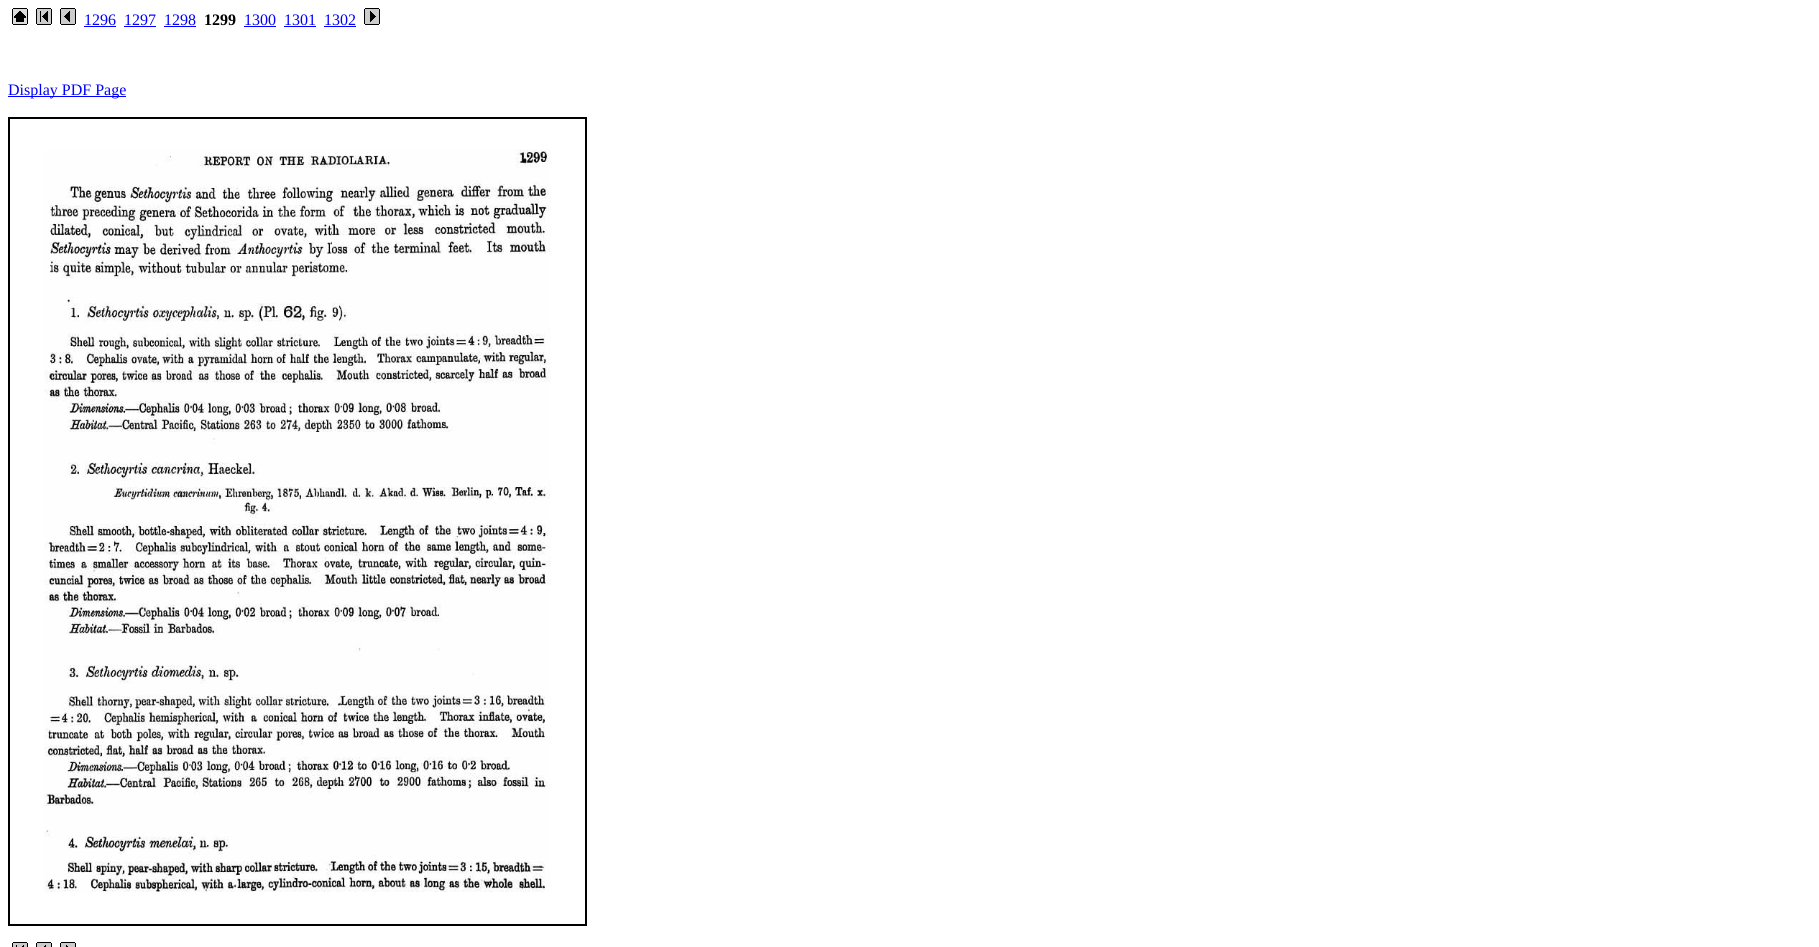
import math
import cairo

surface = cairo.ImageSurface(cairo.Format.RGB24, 1819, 947)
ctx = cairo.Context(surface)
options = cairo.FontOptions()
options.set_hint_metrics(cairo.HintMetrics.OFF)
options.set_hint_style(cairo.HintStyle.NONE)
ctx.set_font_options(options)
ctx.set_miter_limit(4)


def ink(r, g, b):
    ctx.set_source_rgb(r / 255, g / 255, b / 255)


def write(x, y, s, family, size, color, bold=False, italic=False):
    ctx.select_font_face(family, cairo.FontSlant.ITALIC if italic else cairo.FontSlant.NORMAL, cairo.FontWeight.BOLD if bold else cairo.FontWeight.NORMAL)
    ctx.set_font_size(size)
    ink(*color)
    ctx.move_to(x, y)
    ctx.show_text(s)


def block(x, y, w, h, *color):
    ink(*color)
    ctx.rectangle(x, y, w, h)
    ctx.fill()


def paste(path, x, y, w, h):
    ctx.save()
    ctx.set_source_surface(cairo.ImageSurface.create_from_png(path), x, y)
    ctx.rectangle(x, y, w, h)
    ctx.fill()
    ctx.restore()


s1 = dict(family="Liberation Serif", size=16, color=(0, 0, 255))
s2 = dict(family="Liberation Serif", size=16, color=(0, 0, 0), bold=True)

ink(255, 255, 255)
ctx.paint()
paste("pic1.png", 12, 8, 16, 17)
paste("pic2.png", 36, 8, 16, 17)
paste("pic3.png", 60, 8, 16, 17)
write(84, 25, "1296", **s1)
block(84, 26, 32, 1, 0, 0, 255)
write(124, 25, "1297", **s1)
block(124, 26, 32, 1, 0, 0, 255)
write(164, 25, "1298", **s1)
block(164, 26, 32, 1, 0, 0, 255)
write(204, 25, "1299", **s2)
write(244, 25, "1300", **s1)
block(244, 26, 32, 1, 0, 0, 255)
write(284, 25, "1301", **s1)
block(284, 26, 32, 1, 0, 0, 255)
write(324, 25, "1302", **s1)
block(324, 26, 32, 1, 0, 0, 255)
paste("pic4.png", 364, 8, 16, 17)
block(8, 96, 118, 1, 0, 0, 255)
write(8, 95, "Display PDF Page", **s1)
ctx.rectangle(9, 118, 577, 807)
ink(0, 0, 0)
ctx.stroke()
paste("pic5.png", 44, 149, 507, 743)
paste("pic6.png", 12, 942, 16, 5)
paste("pic7.png", 36, 942, 16, 5)
paste("pic8.png", 60, 942, 16, 5)
surface.write_to_png("screenshot.png")
